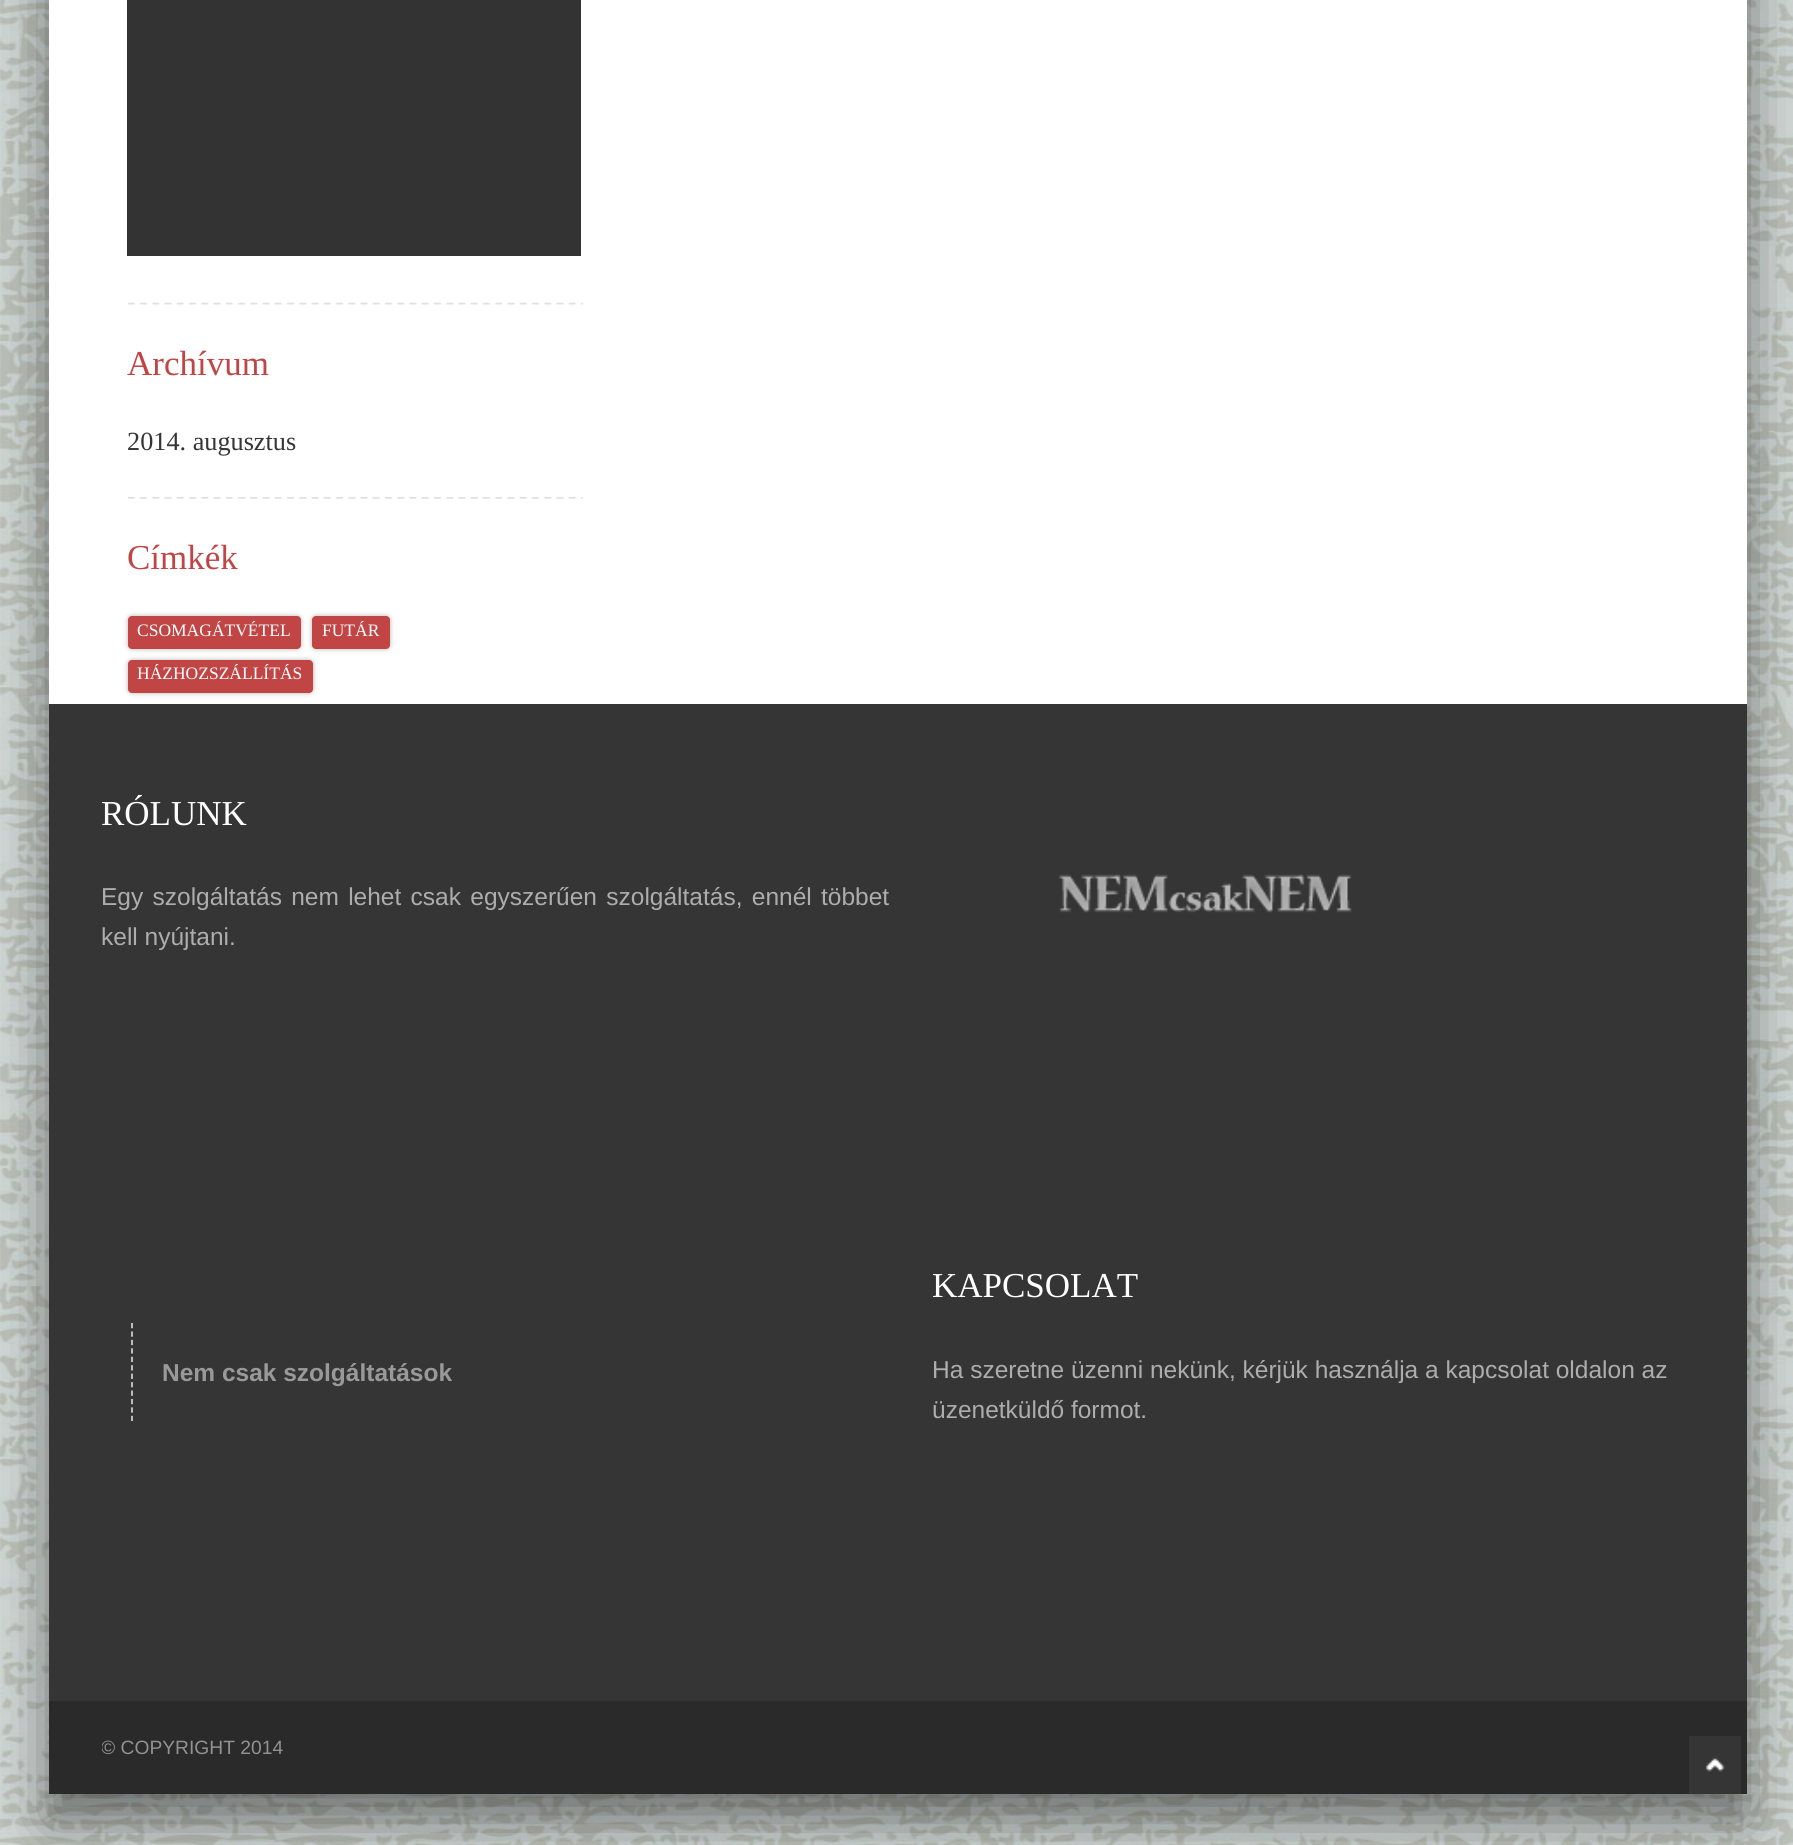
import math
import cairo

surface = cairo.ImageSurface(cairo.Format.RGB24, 1793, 1845)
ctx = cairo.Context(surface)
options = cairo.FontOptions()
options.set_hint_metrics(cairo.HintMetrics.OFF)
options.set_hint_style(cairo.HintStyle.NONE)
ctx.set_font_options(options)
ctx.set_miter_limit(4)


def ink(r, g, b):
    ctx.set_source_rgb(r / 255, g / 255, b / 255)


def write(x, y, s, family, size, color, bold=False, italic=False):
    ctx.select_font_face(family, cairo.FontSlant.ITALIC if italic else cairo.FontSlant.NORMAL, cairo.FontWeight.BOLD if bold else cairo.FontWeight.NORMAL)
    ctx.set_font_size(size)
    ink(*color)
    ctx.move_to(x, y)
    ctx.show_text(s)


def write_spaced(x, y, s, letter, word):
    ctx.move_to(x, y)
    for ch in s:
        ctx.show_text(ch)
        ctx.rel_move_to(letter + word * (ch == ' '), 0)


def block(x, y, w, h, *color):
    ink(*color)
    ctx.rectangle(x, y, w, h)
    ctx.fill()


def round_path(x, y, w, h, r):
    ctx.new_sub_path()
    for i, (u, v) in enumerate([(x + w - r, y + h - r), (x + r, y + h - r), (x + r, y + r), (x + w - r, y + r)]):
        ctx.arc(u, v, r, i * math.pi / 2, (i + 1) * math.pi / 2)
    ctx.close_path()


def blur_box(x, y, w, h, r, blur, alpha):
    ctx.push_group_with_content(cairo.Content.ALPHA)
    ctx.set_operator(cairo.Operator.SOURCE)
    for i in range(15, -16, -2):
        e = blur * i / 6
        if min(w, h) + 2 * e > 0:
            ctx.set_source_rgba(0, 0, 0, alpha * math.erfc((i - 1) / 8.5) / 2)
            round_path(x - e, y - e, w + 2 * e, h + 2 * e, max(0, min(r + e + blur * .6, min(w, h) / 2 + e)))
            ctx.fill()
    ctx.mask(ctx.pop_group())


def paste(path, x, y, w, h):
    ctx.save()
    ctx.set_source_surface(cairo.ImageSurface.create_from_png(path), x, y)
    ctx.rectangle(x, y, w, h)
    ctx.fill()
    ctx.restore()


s1 = dict(family="Liberation Serif", size=35, color=(193, 69, 69))
s2 = dict(family="Liberation Serif", size=26.25, color=(53, 53, 53))
s3 = dict(family="Liberation Serif", size=17.5, color=(255, 255, 255))
s4 = dict(family="Liberation Serif", size=35, color=(255, 255, 255))
s5 = dict(family="Liberation Sans", size=24.5, color=(173, 173, 173))
s6 = dict(family="Liberation Sans", size=24.5, color=(153, 153, 153), bold=True)
s7 = dict(family="Liberation Sans", size=19.25, color=(147, 145, 145))

ink(255, 255, 255)
ctx.paint()
paste("pic1.png", 0, 0, 1793, 1845)
ink(0, 0, 0)
blur_box(49, -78, 1698, 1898, 0, 26, 0.5)
block(49, 0, 1698, 704, 255, 255, 255)
block(127, 0, 454, 256, 51, 51, 51)
paste("pic2.png", 128, 302, 455, 3)
write(127, 375, "Archívum", **s1)
write(127, 450, "2014. augusztus", **s2)
paste("pic3.png", 128, 497, 455, 2)
write(127, 569, "Címkék", **s1)
ink(180, 180, 180)
blur_box(128, 616, 173, 33, 4, 2.5, 1)
ink(193, 69, 69)
round_path(128, 616, 173, 33, 4)
ctx.fill()
write(137, 636, "CSOMAGÁTVÉTEL", **s3)
ink(180, 180, 180)
blur_box(312, 616, 78, 33, 4, 2.5, 1)
ink(193, 69, 69)
round_path(312, 616, 78, 33, 4)
ctx.fill()
write(322, 636, "FUTÁR", **s3)
ink(180, 180, 180)
blur_box(128, 660, 185, 33, 4, 2.5, 1)
ink(193, 69, 69)
round_path(128, 660, 185, 33, 4)
ctx.fill()
write(137, 679, "HÁZHOZSZÁLLÍTÁS", **s3)
block(49, 704, 1698, 997, 53, 53, 53)
write(101, 825, "RÓLUNK", **s4)
ctx.select_font_face("Liberation Sans")
ctx.set_font_size(24.5)
ink(173, 173, 173)
write_spaced(101, 905, "Egy szolgáltatás nem lehet csak egyszerűen szolgáltatás, ennél többet", 0, 2.5)
write(101, 945, "kell nyújtani.", **s5)
paste("pic4.png", 1058, 874, 294, 39)
write(162, 1381, "Nem csak szolgáltatások", **s6)
ctx.new_path()
ctx.move_to(132, 1323)
ctx.line_to(132, 1421)
ink(204, 204, 204)
ctx.set_line_width(1.8)
ctx.set_dash([5.25, 3.19])
ctx.stroke()
write(932, 1297, "KAPCSOLAT", **s4)
write(932, 1378, "Ha szeretne üzenni nekünk, kérjük használja a kapcsolat oldalon az", **s5)
write(932, 1418, "üzenetküldő formot.", **s5)
block(49, 1701, 1698, 93, 42, 42, 42)
ctx.save()
ctx.rectangle(102, 1701, 1645, 93)
ctx.clip()
write(101, 1754, "© COPYRIGHT 2014", **s7)
ctx.restore()
block(1689, 1736, 52, 58, 53, 53, 53)
paste("pic5.png", 1705, 1758, 20, 14)
surface.write_to_png("screenshot.png")
